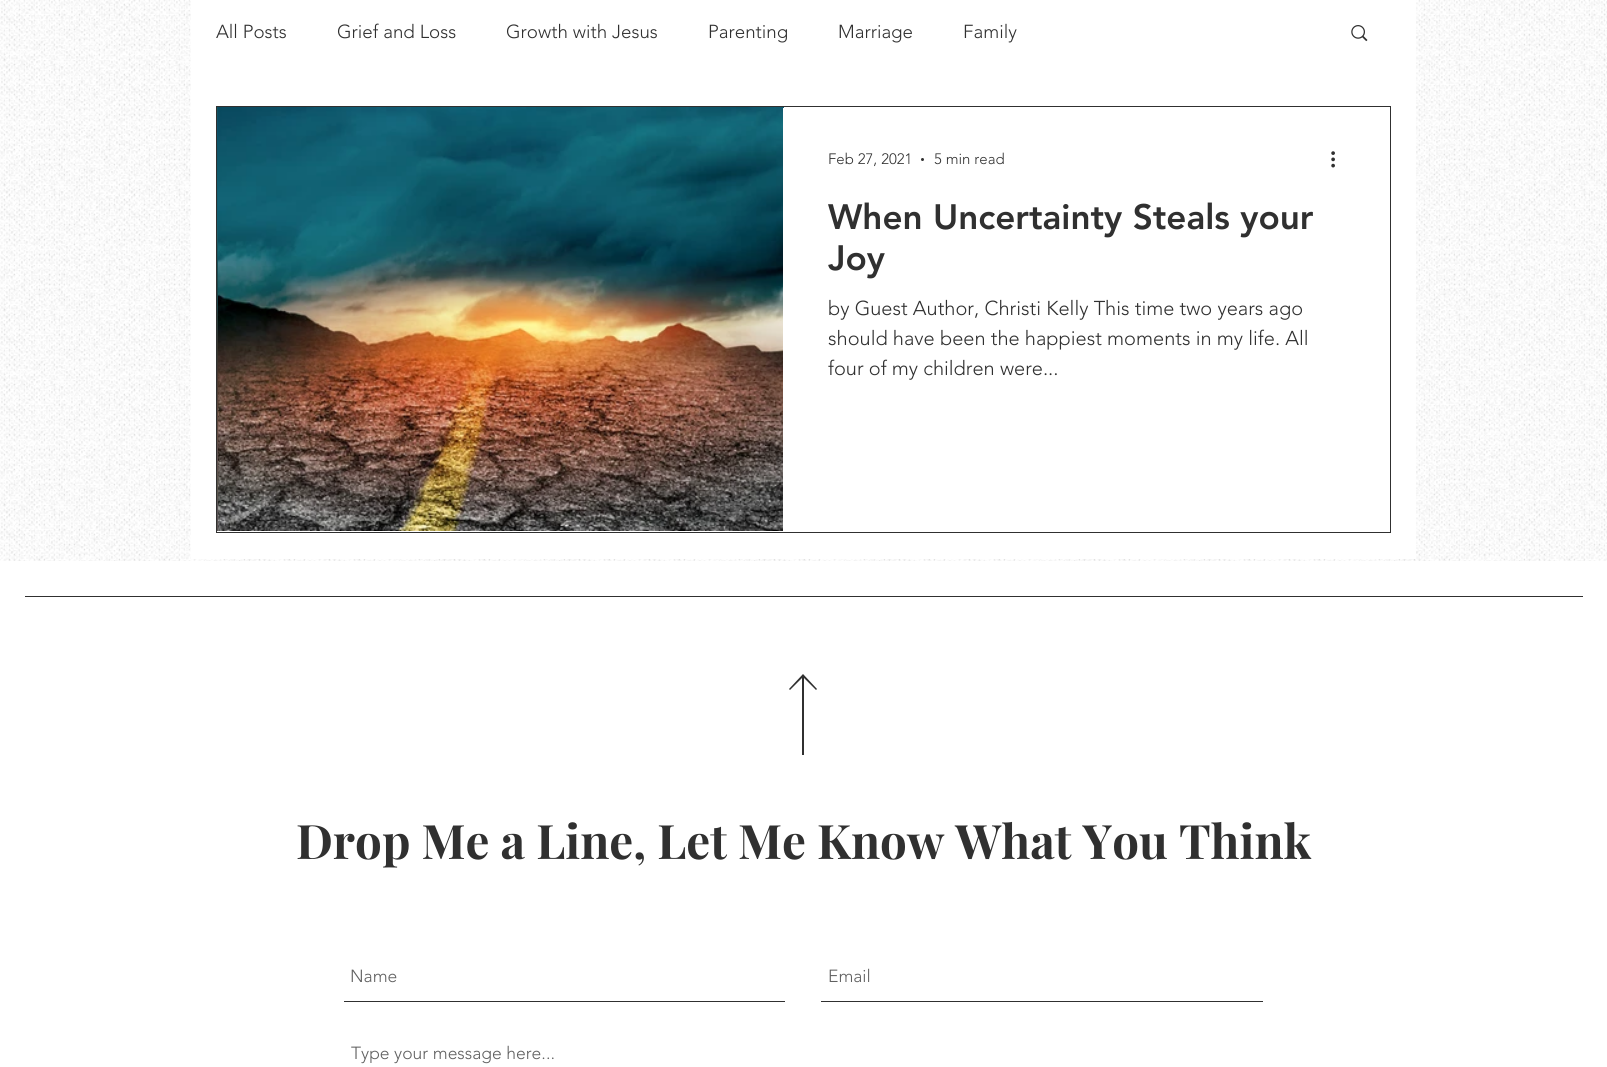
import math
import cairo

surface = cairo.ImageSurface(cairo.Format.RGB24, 1607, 1067)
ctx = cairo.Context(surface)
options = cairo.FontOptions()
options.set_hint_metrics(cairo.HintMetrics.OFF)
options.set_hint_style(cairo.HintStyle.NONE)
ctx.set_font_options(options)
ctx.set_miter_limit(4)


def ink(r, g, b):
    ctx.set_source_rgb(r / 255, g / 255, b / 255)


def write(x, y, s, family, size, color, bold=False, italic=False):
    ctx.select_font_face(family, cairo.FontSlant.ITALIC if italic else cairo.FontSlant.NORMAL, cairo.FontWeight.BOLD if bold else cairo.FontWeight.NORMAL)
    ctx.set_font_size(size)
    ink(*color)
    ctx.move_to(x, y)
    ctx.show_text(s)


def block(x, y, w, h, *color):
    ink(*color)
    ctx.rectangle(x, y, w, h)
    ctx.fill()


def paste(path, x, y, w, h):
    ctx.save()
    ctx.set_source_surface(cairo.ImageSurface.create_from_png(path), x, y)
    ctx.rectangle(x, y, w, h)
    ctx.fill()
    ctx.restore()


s1 = dict(family="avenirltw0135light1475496 Light", size=18.75, color=(48, 48, 48))
s2 = dict(family="avenirltw0135light1475496 Light", size=15, color=(48, 48, 48))
s3 = dict(family="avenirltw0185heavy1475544 Black", size=35, color=(48, 48, 48))
s4 = dict(family="avenirltw0135light1475496 Light", size=20, color=(48, 48, 48))
s5 = dict(family="Playfair Display", size=47.5, color=(48, 48, 48), bold=True)
s6 = dict(family="avenirltw0135light1475496 Light", size=17.5, color=(96, 96, 96))

ink(255, 255, 255)
ctx.paint()
paste("pic1.png", 0, 0, 1607, 561)
block(191, 0, 1225, 559, 255, 255, 255)
write(216, 38, "All Posts", **s1)
write(337, 38, "Grief and Loss", **s1)
write(506, 38, "Growth with Jesus", **s1)
write(708, 38, "Parenting", **s1)
write(838, 38, "Marriage", **s1)
write(963, 38, "Family", **s1)
paste("pic2.png", 1351, 25, 17, 17)
ctx.rectangle(216.5, 106.5, 1174, 426)
ctx.set_line_width(1)
ctx.stroke()
paste("pic3.png", 217, 107, 1, 424)
paste("pic4.png", 218, 107, 566, 424)
block(783, 108, 1, 423, 255, 255, 255)
write(828, 164, "Feb 27, 2021", **s2)
ctx.new_path()
ctx.arc(922.5, 159.5, 1.5, 0, 2 * math.pi)
ctx.fill()
write(934, 164, "5 min read", **s2)
paste("pic5.png", 1331, 151, 4, 17)
write(828, 229, "When Uncertainty Steals your", **s3)
write(828, 270, "Joy", **s3)
write(828, 315, "by Guest Author, Christi Kelly This time two years ago", **s4)
write(828, 345, "should have been the happiest moments in my life. All", **s4)
write(828, 375, "four of my children were...", **s4)
block(25, 596, 1558, 1, 48, 48, 48)
ctx.new_path()
ctx.move_to(817, 689)
ctx.line_to(803, 674)
ctx.line_to(789, 689)
ctx.line_to(790, 690)
ctx.line_to(802, 678)
ctx.line_to(802, 755)
ctx.line_to(804, 755)
ctx.line_to(804, 678)
ctx.line_to(816, 690)
ctx.close_path()
ctx.fill()
write(296, 859, "Drop Me a Line, Let Me Know What You Think", **s5)
block(344, 1001, 441, 1, 48, 48, 48)
write(350, 982, "Name", **s6)
block(821, 1001, 442, 1, 48, 48, 48)
write(828, 982, "Email", **s6)
write(351, 1059, "Type your message here...", **s6)
surface.write_to_png("screenshot.png")
